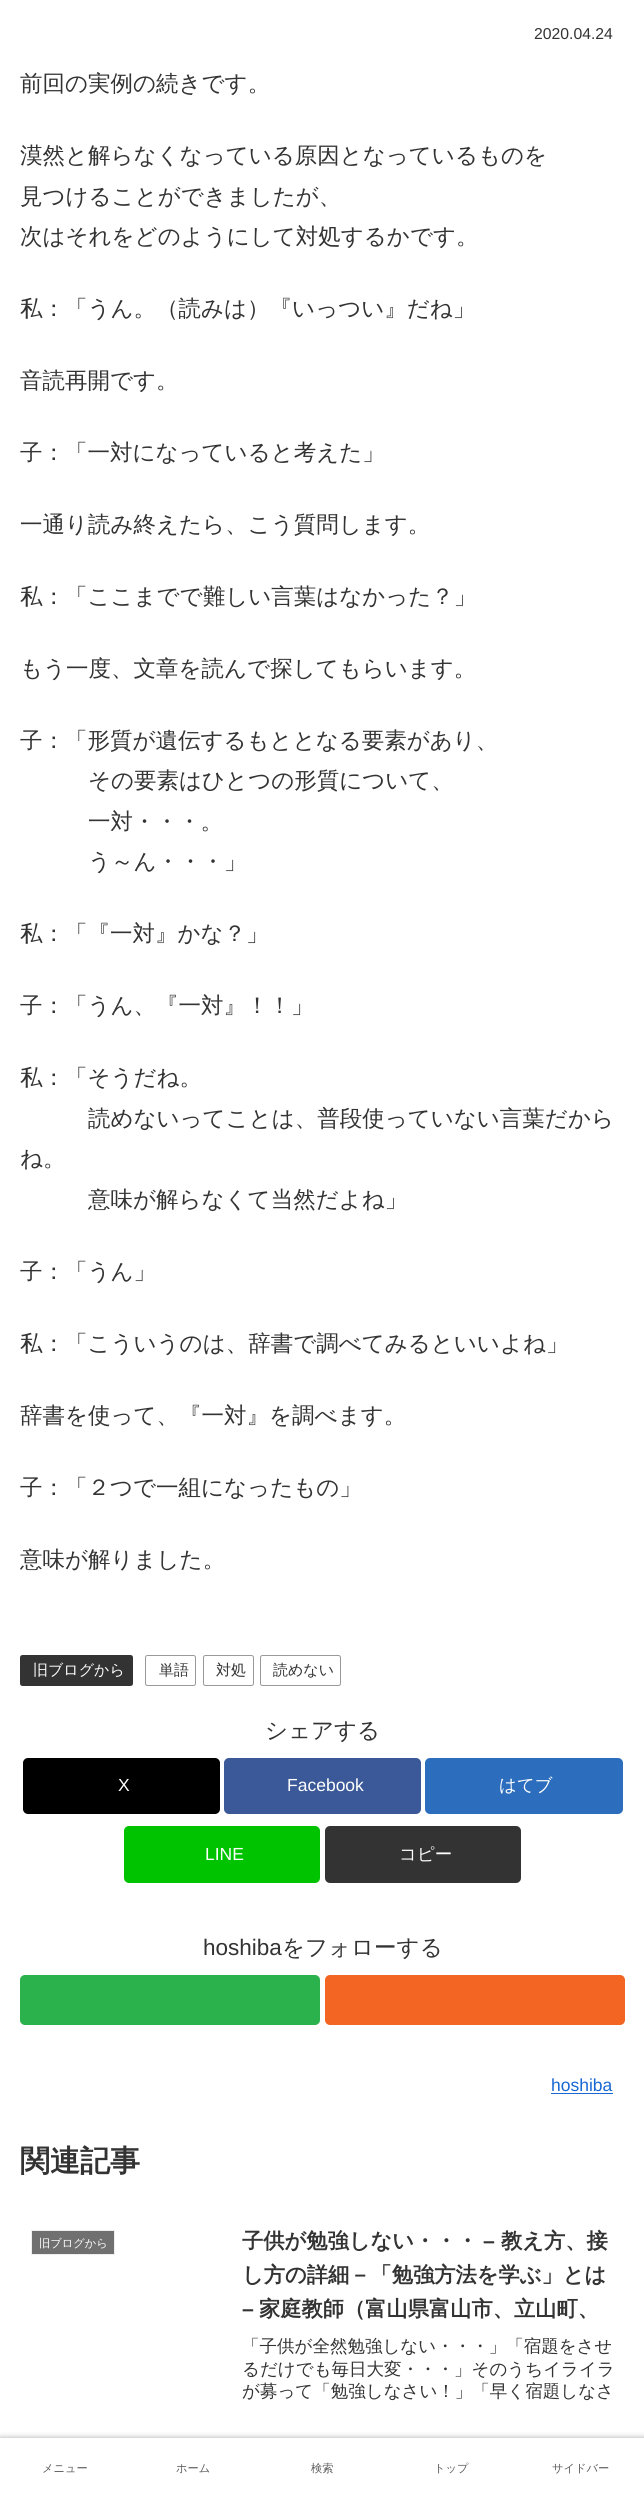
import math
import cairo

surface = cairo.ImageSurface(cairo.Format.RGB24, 644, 2499)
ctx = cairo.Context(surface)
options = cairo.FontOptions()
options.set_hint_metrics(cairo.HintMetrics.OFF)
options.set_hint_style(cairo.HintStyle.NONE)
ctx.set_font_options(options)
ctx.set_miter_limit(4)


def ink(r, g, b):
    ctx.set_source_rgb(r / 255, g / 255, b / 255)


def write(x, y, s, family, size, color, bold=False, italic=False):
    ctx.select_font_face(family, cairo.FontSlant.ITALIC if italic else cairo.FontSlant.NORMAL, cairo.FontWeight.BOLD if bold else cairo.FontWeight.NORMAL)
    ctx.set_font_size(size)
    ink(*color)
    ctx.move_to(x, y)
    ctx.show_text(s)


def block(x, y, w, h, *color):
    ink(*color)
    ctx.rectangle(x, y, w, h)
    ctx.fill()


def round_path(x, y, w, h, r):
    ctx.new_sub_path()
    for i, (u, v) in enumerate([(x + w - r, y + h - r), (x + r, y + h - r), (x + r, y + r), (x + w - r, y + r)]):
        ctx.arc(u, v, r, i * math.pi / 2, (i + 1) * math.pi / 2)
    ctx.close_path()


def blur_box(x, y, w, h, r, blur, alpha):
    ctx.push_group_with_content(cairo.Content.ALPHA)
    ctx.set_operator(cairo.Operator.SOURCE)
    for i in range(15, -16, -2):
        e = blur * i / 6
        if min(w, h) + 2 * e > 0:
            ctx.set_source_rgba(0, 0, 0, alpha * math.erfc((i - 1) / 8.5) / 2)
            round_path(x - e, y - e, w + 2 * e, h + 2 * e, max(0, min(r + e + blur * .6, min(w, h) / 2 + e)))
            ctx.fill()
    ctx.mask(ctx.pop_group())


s1 = dict(family="Liberation Sans", size=15.75, color=(51, 51, 51))
s2 = dict(family="WenQuanYi Zen Hei Medium", size=22.5, color=(51, 51, 51))
s3 = dict(family="WenQuanYi Zen Hei Medium", size=15, color=(255, 255, 255))
s4 = dict(family="WenQuanYi Zen Hei Medium", size=15, color=(51, 51, 51))
s5 = dict(family="Liberation Sans", size=17.5, color=(255, 255, 255))
s6 = dict(family="WenQuanYi Zen Hei Medium", size=17.5, color=(255, 255, 255))
s7 = dict(family="Liberation Sans", size=22.5, color=(51, 51, 51))
s8 = dict(family="Liberation Sans", size=17.5, color=(25, 103, 210))
s9 = dict(family="WenQuanYi Zen Hei", size=30, color=(51, 51, 51), bold=True)
s10 = dict(family="WenQuanYi Zen Hei Medium", size=11.25, color=(255, 255, 255))
s11 = dict(family="WenQuanYi Zen Hei", size=21.25, color=(51, 51, 51), bold=True)
s12 = dict(family="Liberation Sans", size=21.25, color=(51, 51, 51), bold=True)
s13 = dict(family="WenQuanYi Zen Hei Medium", size=17.5, color=(51, 51, 51))
s14 = dict(family="WenQuanYi Zen Hei Medium", size=11.25, color=(92, 92, 92))

ink(255, 255, 255)
ctx.paint()
write(534, 39, "2020.04.24", **s1)
write(20, 91, "前回の実例の続きです。", **s2)
write(20, 163, "漠然と解らなくなっている原因となっているものを", **s2)
write(20, 204, "見つけることができましたが、", **s2)
write(20, 244, "次はそれをどのようにして対処するかです。", **s2)
write(20, 316, "私：「うん。（読みは）『いっつい』だね」", **s2)
write(20, 388, "音読再開です。", **s2)
write(20, 460, "子：「一対になっていると考えた」", **s2)
write(20, 532, "一通り読み終えたら、こう質問します。", **s2)
write(20, 604, "私：「ここまでで難しい言葉はなかった？」", **s2)
write(20, 676, "もう一度、文章を読んで探してもらいます。", **s2)
write(20, 748, "子：「形質が遺伝するもととなる要素があり、", **s2)
write(88, 788, "その要素はひとつの形質について、", **s2)
write(88, 829, "一対・・・。", **s2)
write(88, 869, "う～ん・・・」", **s2)
write(20, 941, "私：「『一対』かな？」", **s2)
write(20, 1013, "子：「うん、『一対』！！」", **s2)
write(20, 1085, "私：「そうだね。", **s2)
write(88, 1126, "読めないってことは、普段使っていない言葉だから", **s2)
write(20, 1166, "ね。", **s2)
write(88, 1207, "意味が解らなくて当然だよね」", **s2)
write(20, 1279, "子：「うん」", **s2)
write(20, 1351, "私：「こういうのは、辞書で調べてみるといいよね」", **s2)
write(20, 1423, "辞書を使って、『一対』を調べます。", **s2)
write(20, 1495, "子：「２つで一組になったもの」", **s2)
write(20, 1567, "意味が解りました。", **s2)
round_path(20, 1655, 113, 31, 2.5)
ctx.fill()
write(33, 1675, "旧ブログから", **s3)
round_path(145.5, 1655.5, 50, 30, 2)
ink(153, 153, 153)
ctx.set_line_width(1)
ctx.stroke()
write(159, 1675, "単語", **s4)
round_path(203.5, 1655.5, 50, 30, 2)
ink(153, 153, 153)
ctx.stroke()
write(216, 1675, "対処", **s4)
round_path(260.5, 1655.5, 80, 30, 2)
ink(153, 153, 153)
ctx.stroke()
write(273, 1675, "読めない", **s4)
write(265, 1738, "シェアする", **s2)
ink(0, 0, 0)
round_path(23, 1758, 197, 56, 5)
ctx.fill()
write(118, 1791, "X", **s5)
ink(59, 89, 152)
round_path(224, 1758, 197, 56, 5)
ctx.fill()
write(287, 1791, "Facebook", **s5)
ink(44, 110, 189)
round_path(425, 1758, 198, 56, 5)
ctx.fill()
write(499, 1791, "はてブ", **s6)
ink(0, 195, 0)
round_path(124, 1826, 196, 57, 5)
ctx.fill()
write(205, 1860, "LINE", **s5)
ink(51, 51, 51)
round_path(325, 1826, 196, 57, 5)
ctx.fill()
write(399, 1860, "コピー", **s6)
write(203, 1955, "hoshiba", **s7)
write(282, 1955, "をフォローする", **s2)
ink(43, 178, 76)
round_path(20, 1975, 300, 50, 5)
ctx.fill()
ink(242, 101, 34)
round_path(325, 1975, 300, 50, 5)
ctx.fill()
write(551, 2091, "hoshiba", **s8)
block(551, 2093, 62, 1, 25, 103, 210)
write(20, 2171, "関連記事", **s9)
ink(112, 112, 112)
ctx.rectangle(31.5, 2230.5, 83, 24)
ctx.fill_preserve()
ink(238, 238, 238)
ctx.stroke()
write(39, 2247, "旧ブログから", **s10)
write(242, 2248, "子供が勉強しない・・・", **s11)
write(483, 2248, "–", **s12)
write(501, 2248, "教え方、接", **s11)
write(242, 2282, "し方の詳細－「勉強方法を学ぶ」とは", **s11)
write(242, 2316, "–", **s12)
write(259, 2316, "家庭教師（富山県富山市、立山町、", **s11)
write(242, 2352, "「子供が全然勉強しない・・・」「宿題をさせ", **s13)
write(242, 2375, "るだけでも毎日大変・・・」そのうちイライラ", **s13)
write(242, 2397, "が募って「勉強しなさい！」「早く宿題しなさ", **s13)
ink(169, 169, 169)
blur_box(0, 2438, 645, 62, 0, 3, 1)
block(0, 2438, 644, 61, 255, 255, 255)
write(42, 2472, "メニュー", **s14)
write(176, 2472, "ホーム", **s14)
write(311, 2472, "検索", **s14)
write(434, 2472, "トップ", **s14)
write(552, 2472, "サイドバー", **s14)
surface.write_to_png("screenshot.png")
